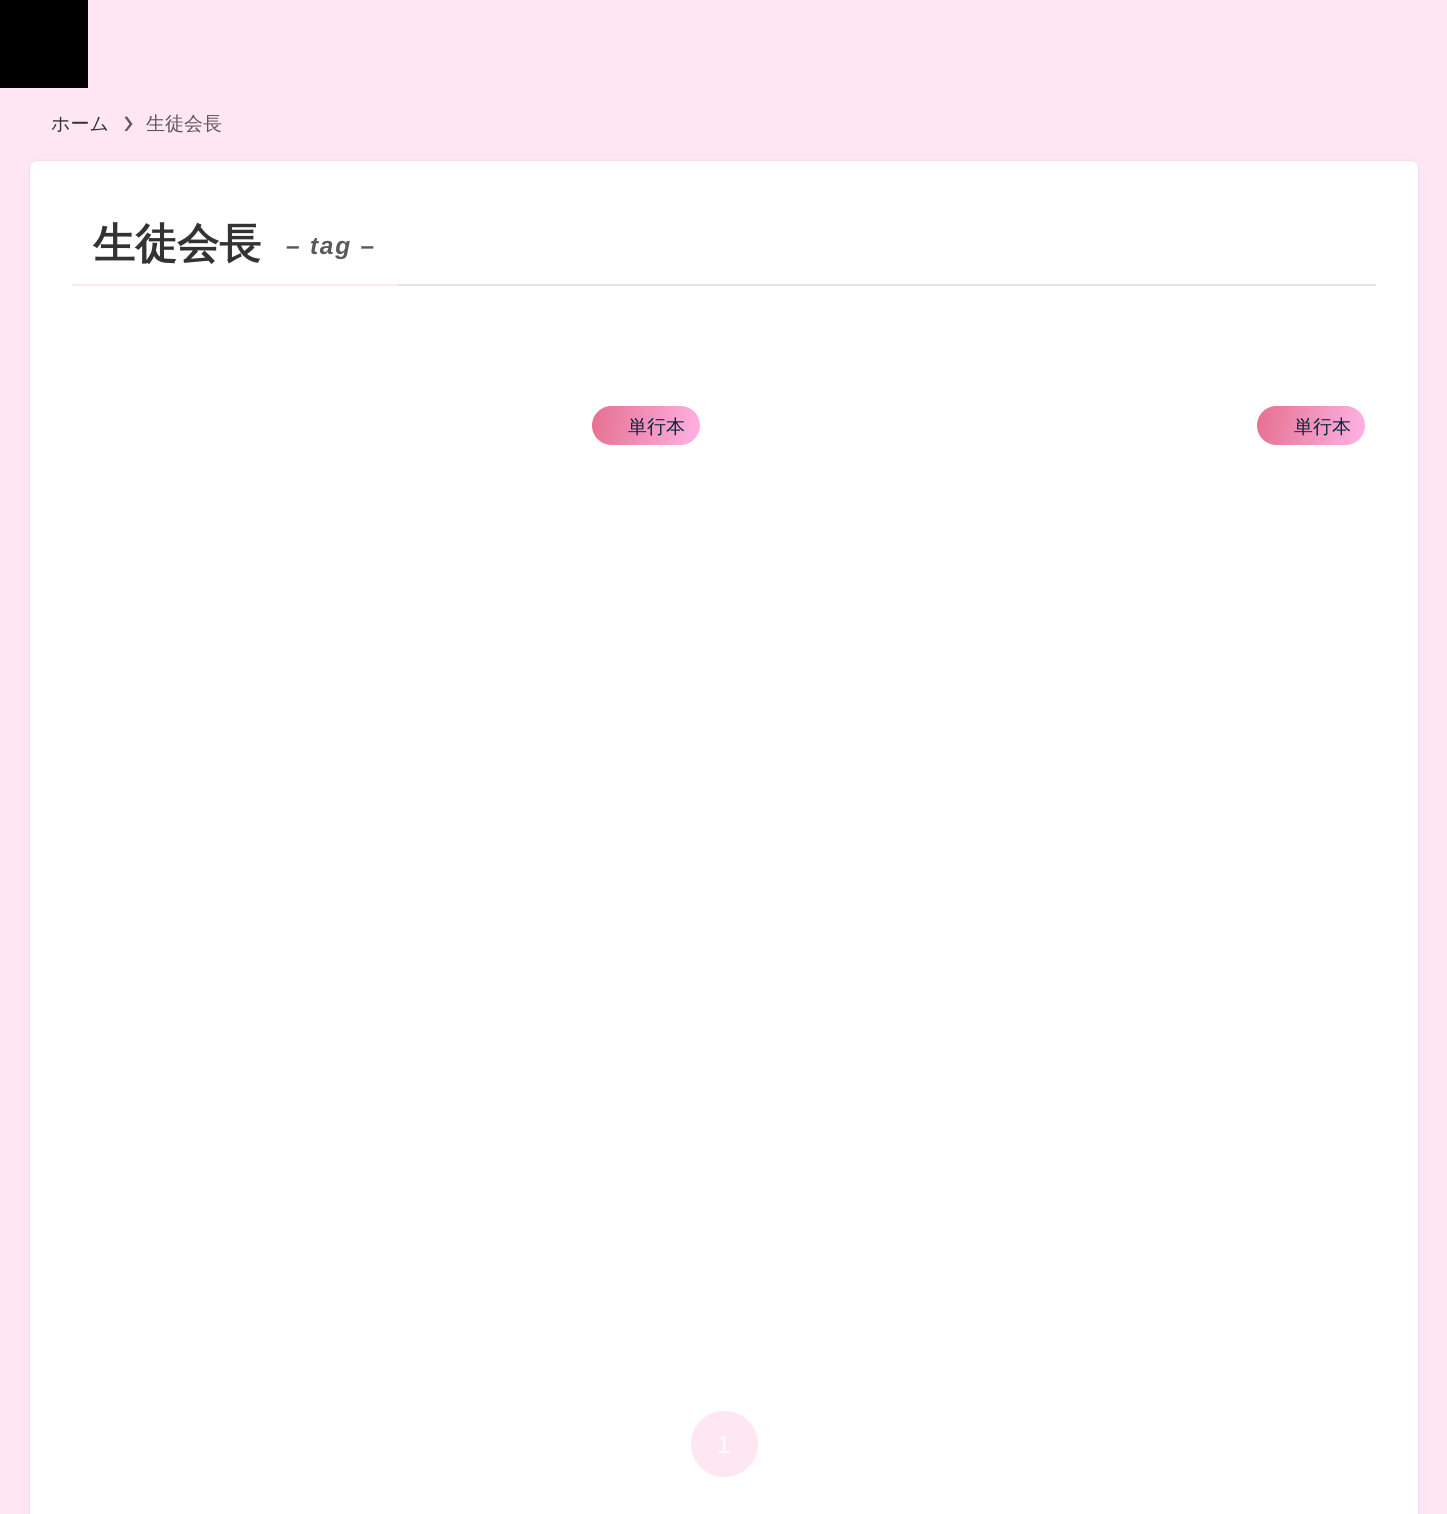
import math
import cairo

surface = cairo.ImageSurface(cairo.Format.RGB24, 1447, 1514)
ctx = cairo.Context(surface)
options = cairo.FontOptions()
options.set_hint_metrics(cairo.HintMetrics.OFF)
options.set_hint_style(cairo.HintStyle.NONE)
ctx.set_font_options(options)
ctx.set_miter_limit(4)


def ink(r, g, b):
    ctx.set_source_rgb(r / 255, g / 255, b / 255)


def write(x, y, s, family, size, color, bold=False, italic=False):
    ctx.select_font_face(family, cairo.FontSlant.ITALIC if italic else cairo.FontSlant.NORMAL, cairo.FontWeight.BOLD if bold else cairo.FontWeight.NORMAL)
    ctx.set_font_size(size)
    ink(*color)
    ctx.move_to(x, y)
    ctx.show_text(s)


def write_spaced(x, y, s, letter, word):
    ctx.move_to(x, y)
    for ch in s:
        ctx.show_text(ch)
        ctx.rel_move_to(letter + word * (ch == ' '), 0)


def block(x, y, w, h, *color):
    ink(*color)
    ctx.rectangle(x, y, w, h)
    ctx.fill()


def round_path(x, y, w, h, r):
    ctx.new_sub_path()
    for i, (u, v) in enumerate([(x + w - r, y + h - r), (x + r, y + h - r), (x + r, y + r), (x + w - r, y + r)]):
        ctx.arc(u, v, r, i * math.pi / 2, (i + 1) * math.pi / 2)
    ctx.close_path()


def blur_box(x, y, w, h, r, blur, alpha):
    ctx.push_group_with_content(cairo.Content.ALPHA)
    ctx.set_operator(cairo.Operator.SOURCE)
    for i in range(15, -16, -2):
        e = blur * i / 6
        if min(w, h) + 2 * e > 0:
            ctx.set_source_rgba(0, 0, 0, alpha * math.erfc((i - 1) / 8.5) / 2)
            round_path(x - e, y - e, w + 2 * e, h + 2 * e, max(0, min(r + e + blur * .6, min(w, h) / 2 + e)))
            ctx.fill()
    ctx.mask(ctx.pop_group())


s1 = dict(family="WenQuanYi Zen Hei Medium", size=19, color=(51, 51, 51))
s2 = dict(family="WenQuanYi Zen Hei Medium", size=19, color=(92, 87, 89))
s3 = dict(family="WenQuanYi Zen Hei", size=42, color=(51, 51, 51), bold=True)
s4 = dict(family="WenQuanYi Zen Hei Medium", size=19, color=(0, 40, 61))
s5 = dict(family="Liberation Sans", size=24.5, color=(255, 255, 255))

ink(255, 230, 243)
ctx.paint()
block(0, 0, 88, 88, 0, 0, 0)
write(51, 130, "ホーム", **s1)
ink(92, 87, 89)
ctx.new_path()
ctx.move_to(127, 116.5)
ctx.line_to(124.5, 117)
ctx.line_to(129.5, 124)
ctx.line_to(124.5, 131)
ctx.line_to(127, 131)
ctx.line_to(132.5, 124)
ctx.close_path()
ctx.fill()
write(146, 130, "生徒会長", **s2)
ink(0, 0, 0)
blur_box(30, 161, 1388, 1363, 7, 1, 0.12)
ink(255, 255, 255)
round_path(30, 161, 1388, 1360, 7)
ctx.fill()
block(397, 284, 979, 2, 227, 227, 227)
block(72, 284, 325, 2, 255, 230, 243)
write(93, 258, "生徒会長", **s3)
ctx.select_font_face("Liberation Sans", cairo.FontSlant.ITALIC, cairo.FontWeight.BOLD)
ctx.set_font_size(24.5)
ink(92, 87, 89)
write_spaced(286, 254, "– tag –", 1.75, 0)
gradient = cairo.LinearGradient(590, 415, 702, 435)
gradient.add_color_stop_rgba(0, 0.898, 0.439, 0.561, 1)
gradient.add_color_stop_rgba(1, 1, 0.702, 0.898, 1)
ctx.set_source(gradient)
round_path(592, 406, 108, 39, 19.5)
ctx.fill()
write(628, 433, "単行本", **s4)
gradient = cairo.LinearGradient(1255, 415, 1367, 435)
gradient.add_color_stop_rgba(0, 0.898, 0.439, 0.561, 1)
gradient.add_color_stop_rgba(1, 1, 0.702, 0.898, 1)
ctx.set_source(gradient)
round_path(1257, 406, 108, 39, 19.5)
ctx.fill()
write(1294, 433, "単行本", **s4)
ink(255, 230, 243)
round_path(692, 1412, 65, 64, 32)
ctx.fill_preserve()
ctx.stroke()
write(717, 1453, "1", **s5)
surface.write_to_png("screenshot.png")
